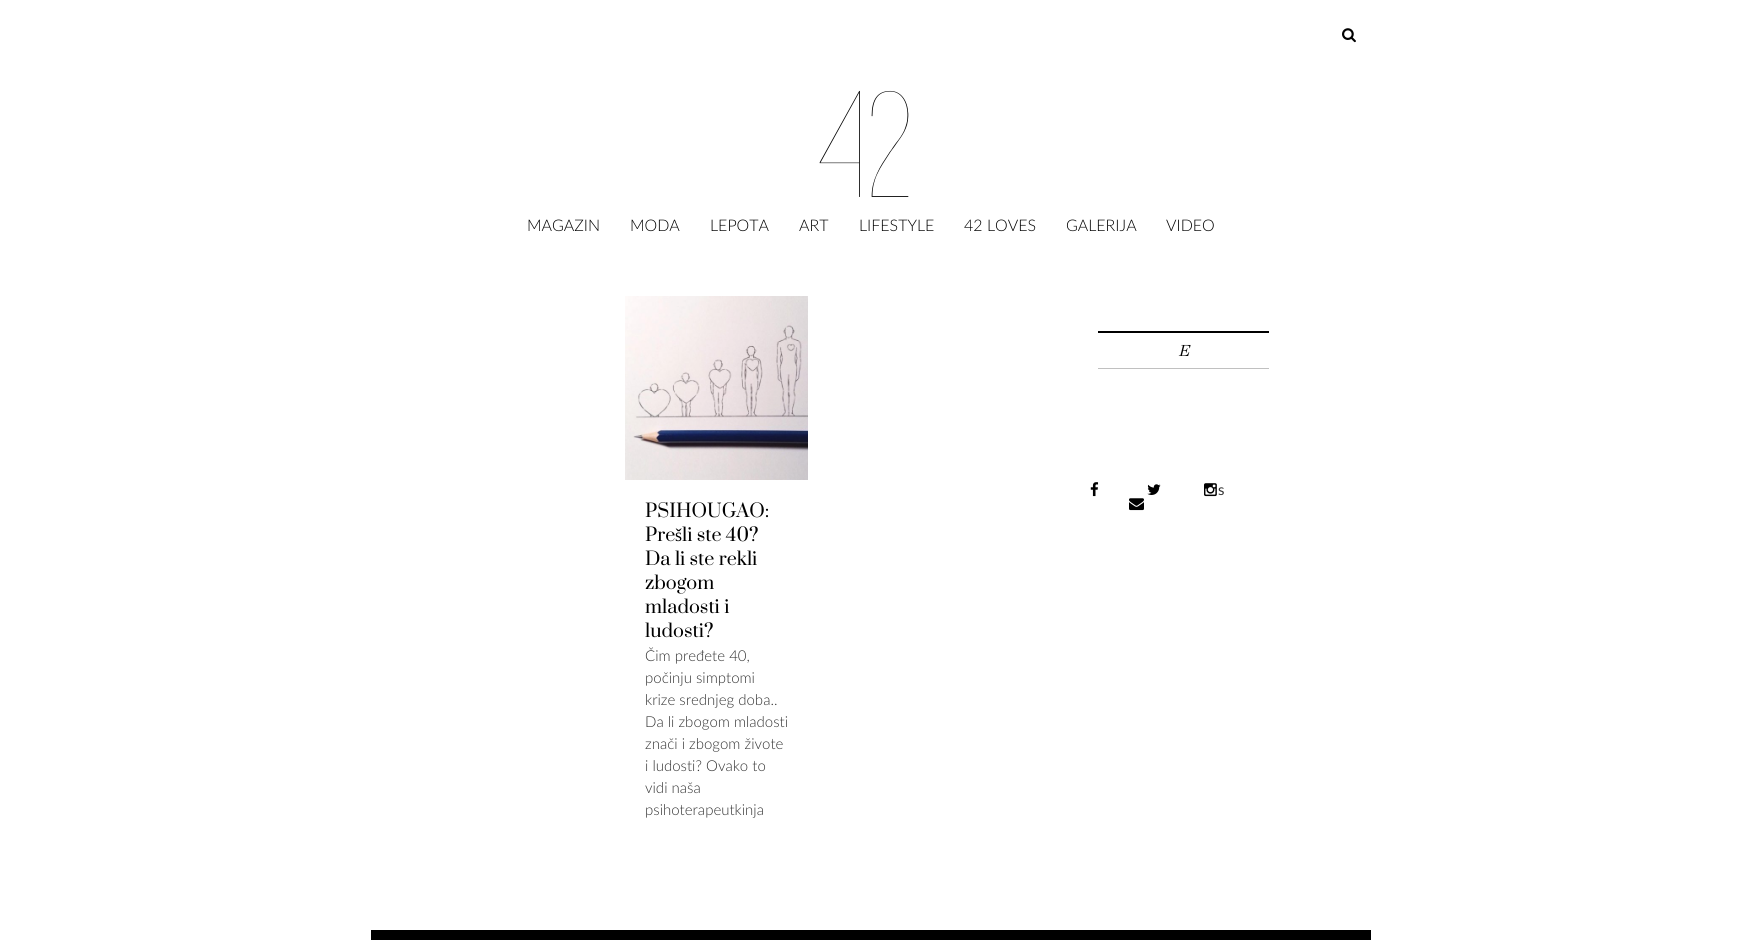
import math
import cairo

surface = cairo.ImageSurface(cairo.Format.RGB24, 1741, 940)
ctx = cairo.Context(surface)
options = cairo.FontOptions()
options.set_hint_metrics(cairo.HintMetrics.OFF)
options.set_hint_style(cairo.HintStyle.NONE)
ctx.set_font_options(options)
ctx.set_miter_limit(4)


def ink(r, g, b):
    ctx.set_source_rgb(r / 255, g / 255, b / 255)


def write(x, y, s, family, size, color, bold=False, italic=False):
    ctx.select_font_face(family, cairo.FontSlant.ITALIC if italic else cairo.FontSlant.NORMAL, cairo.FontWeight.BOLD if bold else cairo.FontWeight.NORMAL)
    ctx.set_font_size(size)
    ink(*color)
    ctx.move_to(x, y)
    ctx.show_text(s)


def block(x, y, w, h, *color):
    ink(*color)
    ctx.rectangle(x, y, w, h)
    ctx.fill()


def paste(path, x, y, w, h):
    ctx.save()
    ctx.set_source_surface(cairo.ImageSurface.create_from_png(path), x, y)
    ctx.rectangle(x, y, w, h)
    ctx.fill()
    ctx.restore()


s1 = dict(family="Lato Light", size=16, color=(0, 0, 0))
s2 = dict(family="GFS Didot", size=16, color=(0, 0, 0), italic=True)
s3 = dict(family="Lato", size=15, color=(51, 51, 51))
s4 = dict(family="Prata", size=18, color=(0, 0, 0))
s5 = dict(family="Liberation Serif", size=18, color=(0, 0, 0))
s6 = dict(family="Lato Light", size=15, color=(51, 51, 51))

ink(255, 255, 255)
ctx.paint()
paste("pic1.png", 1342, 28, 14, 15)
paste("pic2.png", 819, 90, 90, 107)
write(527, 231, "MAGAZIN", **s1)
write(630, 231, "MODA", **s1)
write(710, 231, "LEPOTA", **s1)
write(799, 231, "ART", **s1)
write(859, 231, "LIFESTYLE", **s1)
write(964, 231, "42 LOVES", **s1)
write(1066, 231, "GALERIJA", **s1)
write(1166, 231, "VIDEO", **s1)
block(1098, 331, 171, 2, 0, 0, 0)
block(1098, 368, 171, 1, 192, 192, 192)
write(1178, 356, "E", **s2)
paste("pic3.png", 1090, 482, 9, 15)
paste("pic4.png", 1147, 484, 14, 11)
paste("pic5.png", 1204, 483, 13, 14)
paste("pic6.png", 1129, 498, 15, 13)
write(1218, 495, "s", **s3)
paste("pic7.png", 625, 296, 183, 184)
write(645, 517, "PSIHOUGAO:", **s4)
write(645, 541, "Pre", **s4)
write(675, 541, "š", **s5)
write(682, 541, "li ste 40?", **s4)
write(645, 565, "Da li ste rekli", **s4)
write(645, 589, "zbogom", **s4)
write(645, 613, "mladosti i", **s4)
write(645, 637, "ludosti?", **s4)
write(645, 661, "Čim pređete 40,", **s6)
write(645, 683, "počinju simptomi", **s6)
write(645, 705, "krize srednjeg doba..", **s6)
write(645, 727, "Da li zbogom mladosti", **s6)
write(645, 749, "znači i zbogom živote", **s6)
write(645, 771, "i ludosti? Ovako to", **s6)
write(645, 793, "vidi naša", **s6)
write(645, 815, "psihoterapeutkinja", **s6)
block(371, 930, 1000, 10, 0, 0, 0)
surface.write_to_png("screenshot.png")
